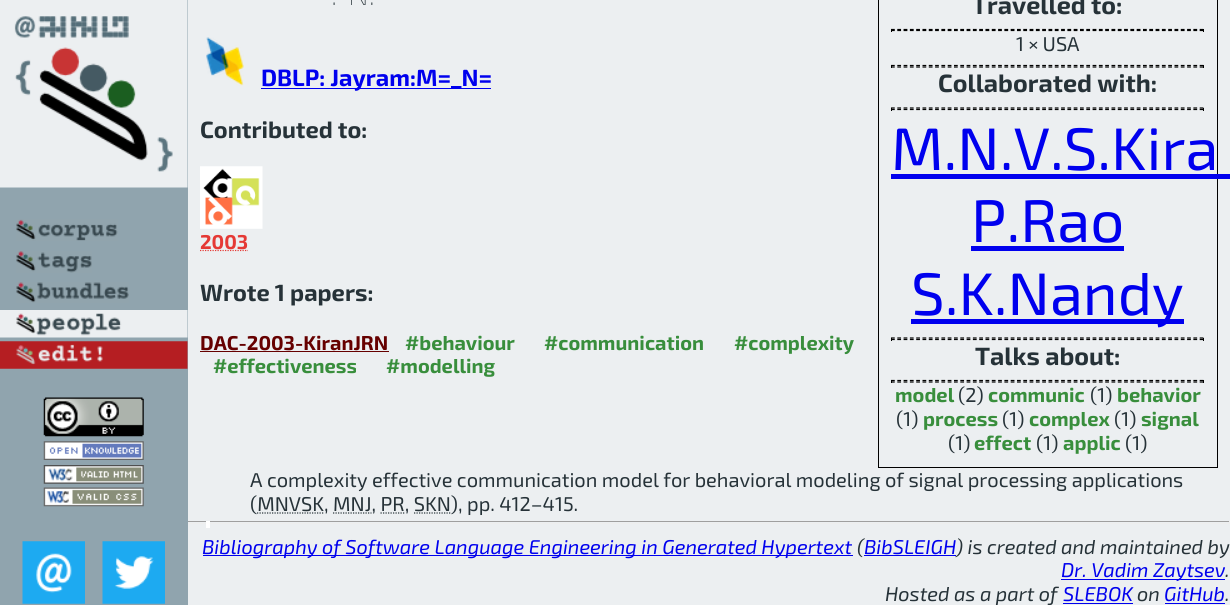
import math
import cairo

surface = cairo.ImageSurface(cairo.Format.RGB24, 1230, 605)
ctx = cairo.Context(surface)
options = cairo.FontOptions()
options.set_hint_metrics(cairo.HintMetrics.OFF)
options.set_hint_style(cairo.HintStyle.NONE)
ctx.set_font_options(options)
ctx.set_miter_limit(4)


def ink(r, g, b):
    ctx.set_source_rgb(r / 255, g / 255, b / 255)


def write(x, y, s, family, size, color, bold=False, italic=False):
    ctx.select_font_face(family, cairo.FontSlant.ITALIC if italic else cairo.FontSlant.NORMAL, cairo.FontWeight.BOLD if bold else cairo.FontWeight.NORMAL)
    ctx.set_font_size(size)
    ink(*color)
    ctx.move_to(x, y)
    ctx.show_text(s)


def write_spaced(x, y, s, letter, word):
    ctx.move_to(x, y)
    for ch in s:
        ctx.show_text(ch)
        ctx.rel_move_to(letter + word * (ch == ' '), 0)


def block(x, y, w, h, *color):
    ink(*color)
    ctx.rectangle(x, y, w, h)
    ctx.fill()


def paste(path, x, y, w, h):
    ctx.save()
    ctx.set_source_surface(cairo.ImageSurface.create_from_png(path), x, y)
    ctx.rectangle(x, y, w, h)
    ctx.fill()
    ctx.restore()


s1 = dict(family="Exo 2", size=25, color=(38, 50, 56), bold=True)
s2 = dict(family="Exo 2", size=20, color=(38, 50, 56))
s3 = dict(family="Exo 2", size=60, color=(0, 0, 238))
s4 = dict(family="Exo 2", size=20, color=(56, 142, 60), bold=True)
s5 = dict(family="Exo 2", size=23.5, color=(0, 0, 238), bold=True)
s6 = dict(family="Exo 2", size=23.5, color=(38, 50, 56), bold=True)
s7 = dict(family="Exo 2", size=20, color=(229, 57, 53), bold=True)
s8 = dict(family="Exo 2", size=20, color=(102, 0, 0), bold=True)
s9 = dict(family="Exo 2", size=20, color=(0, 0, 238), italic=True)
s10 = dict(family="Exo 2", size=20, color=(38, 50, 56), italic=True)

ink(236, 239, 241)
ctx.paint()
block(0, 0, 188, 605, 144, 164, 174)
paste("pic1.png", 0, 0, 188, 188)
paste("pic2.png", 16, 219, 102, 22)
paste("pic3.png", 16, 251, 76, 22)
paste("pic4.png", 16, 282, 113, 21)
paste("pic5.png", 0, 310, 188, 28)
paste("pic6.png", 0, 341, 188, 28)
paste("pic7.png", 43, 397, 101, 40)
paste("pic8.png", 43, 441, 101, 19)
paste("pic9.png", 43, 465, 101, 19)
paste("pic10.png", 43, 487, 101, 20)
paste("pic11.png", 22, 541, 63, 63)
paste("pic12.png", 102, 541, 63, 63)
ctx.select_font_face("Exo 2 Thin")
ctx.set_font_size(30)
ink(38, 50, 56)
write_spaced(331, 5, ". N.", 0, 4)
ctx.rectangle(878.5, -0.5, 339, 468)
ink(0, 0, 0)
ctx.set_line_width(1)
ctx.stroke()
write(972, 14, "Travelled to:", **s1)
ctx.new_path()
ctx.move_to(891, 29.5)
ctx.line_to(1204, 29.5)
ink(0, 0, 0)
ctx.set_line_width(1.2)
ctx.set_dash([3.75, 2.55])
ctx.stroke()
block(1203, 29, 1, 3, 0, 0, 0)
ctx.new_path()
ctx.move_to(891, 30.5)
ctx.line_to(1204, 30.5)
ctx.stroke()
block(891, 29, 1, 3, 0, 0, 0)
write(1016, 51, "1 × USA", **s2)
ctx.new_path()
ctx.move_to(891, 65.5)
ctx.line_to(1204, 65.5)
ink(0, 0, 0)
ctx.stroke()
block(1203, 65, 1, 3, 0, 0, 0)
ctx.new_path()
ctx.move_to(891, 67)
ctx.line_to(1204, 67)
ctx.stroke()
block(891, 65, 1, 3, 0, 0, 0)
write(938, 92, "Collaborated with:", **s1)
ctx.new_path()
ctx.move_to(891, 108)
ctx.line_to(1204, 108)
ink(0, 0, 0)
ctx.stroke()
block(1203, 108, 1, 3, 0, 0, 0)
ctx.new_path()
ctx.move_to(891, 109.5)
ctx.line_to(1204, 109.5)
ctx.stroke()
block(891, 108, 1, 3, 0, 0, 0)
write(891, 170, "M.N.V.S.Kira", **s3)
block(891, 174, 339, 5, 0, 0, 238)
write(971, 242, "P.Rao", **s3)
block(971, 246, 153, 5, 0, 0, 238)
block(911, 319, 273, 5, 0, 0, 238)
write(911, 315, "S.K.Nandy", **s3)
ctx.new_path()
ctx.move_to(891, 338)
ctx.line_to(1204, 338)
ink(0, 0, 0)
ctx.stroke()
block(1203, 338, 1, 3, 0, 0, 0)
ctx.new_path()
ctx.move_to(891, 339.5)
ctx.line_to(1204, 339.5)
ctx.stroke()
block(891, 338, 1, 3, 0, 0, 0)
write(975, 365, "Talks about:", **s1)
ctx.new_path()
ctx.move_to(891, 380.5)
ctx.line_to(1204, 380.5)
ink(0, 0, 0)
ctx.stroke()
block(1203, 380, 1, 3, 0, 0, 0)
ctx.new_path()
ctx.move_to(891, 382)
ctx.line_to(1204, 382)
ctx.stroke()
block(891, 380, 1, 3, 0, 0, 0)
write(895, 402, "model", **s4)
write(958, 402, "(2)", **s2)
write(988, 402, "communic", **s4)
write(1090, 402, "(1)", **s2)
write(1117, 402, "behavior", **s4)
write(896, 426, "(1)", **s2)
write(923, 426, "process", **s4)
write(1002, 426, "(1)", **s2)
write(1029, 426, "complex", **s4)
write(1114, 426, "(1)", **s2)
write(1141, 426, "signal", **s4)
write(948, 450, "(1)", **s2)
write(974, 450, "effect", **s4)
write(1036, 450, "(1)", **s2)
write(1063, 450, "applic", **s4)
write(1125, 450, "(1)", **s2)
paste("pic13.png", 206, 37, 38, 49)
block(261, 88, 230, 1, 0, 0, 238)
write(261, 86, "DBLP: Jayram:M=_N=", **s5)
write(200, 138, "Contributed to:", **s6)
paste("pic14.png", 200, 166, 63, 63)
ctx.new_path()
ctx.move_to(200, 250.5)
ctx.line_to(248, 250.5)
ink(229, 57, 53)
ctx.set_dash([1.25, 1.25])
ctx.stroke()
write(200, 249, "2003", **s7)
write(200, 301, "Wrote 1 papers:", **s6)
write(200, 350, "DAC-2003-KiranJRN", **s8)
block(200, 351, 189, 1, 102, 0, 0)
write(405, 350, "#behaviour", **s4)
write(544, 350, "#communication", **s4)
write(734, 350, "#complexity", **s4)
write(213, 373, "#effectiveness", **s4)
write(386, 373, "#modelling", **s4)
write(250, 487, "A complexity effective communication model for behavioral modeling of signal processing applications", **s2)
write(250, 511, "(MNVSK, MNJ, PR, SKN), pp. 412–415.", **s2)
ctx.new_path()
ctx.move_to(257, 513)
ctx.line_to(324, 513)
ctx.stroke()
ctx.new_path()
ctx.move_to(333, 513)
ctx.line_to(371.5, 513)
ctx.stroke()
ctx.new_path()
ctx.move_to(380.5, 513)
ctx.line_to(404.5, 513)
ctx.stroke()
ctx.new_path()
ctx.move_to(414, 513)
ctx.line_to(451, 513)
ctx.stroke()
block(188, 521, 1042, 1, 159, 159, 159)
block(1229, 521, 1, 3, 238, 238, 238)
block(188, 523, 1042, 1, 238, 238, 238)
block(206, 521, 4, 7, 255, 255, 255)
block(203, 555, 650, 1, 0, 0, 238)
write(202, 554, "Bibliography of Software Language Engineering in Generated Hypertext", **s9)
write(857, 554, "(", **s10)
write(864, 554, "BibSLEIGH", **s9)
block(864, 555, 92, 1, 0, 0, 238)
write(956, 554, ") is created and maintained by", **s10)
block(1061, 579, 164, 1, 0, 0, 238)
write(1061, 577, "Dr. Vadim Zaytsev", **s9)
write(1225, 577, ".", **s10)
write(885, 601, "Hosted as a part of", **s10)
write(1063, 601, "SLEBOK", **s9)
write(1137, 601, "on", **s10)
block(1063, 603, 70, 1, 0, 0, 238)
write(1164, 601, "GitHub", **s9)
write(1225, 601, ".", **s10)
block(1165, 603, 60, 1, 0, 0, 238)
surface.write_to_png("screenshot.png")
